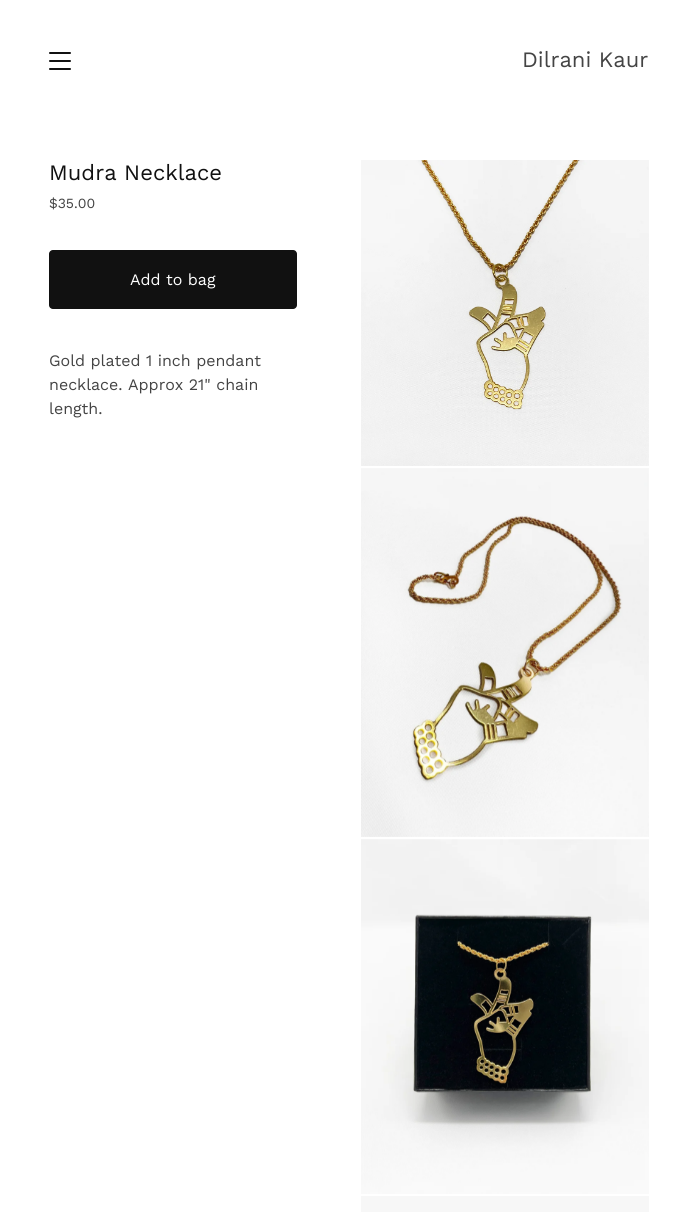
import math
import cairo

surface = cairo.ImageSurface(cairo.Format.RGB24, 698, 1212)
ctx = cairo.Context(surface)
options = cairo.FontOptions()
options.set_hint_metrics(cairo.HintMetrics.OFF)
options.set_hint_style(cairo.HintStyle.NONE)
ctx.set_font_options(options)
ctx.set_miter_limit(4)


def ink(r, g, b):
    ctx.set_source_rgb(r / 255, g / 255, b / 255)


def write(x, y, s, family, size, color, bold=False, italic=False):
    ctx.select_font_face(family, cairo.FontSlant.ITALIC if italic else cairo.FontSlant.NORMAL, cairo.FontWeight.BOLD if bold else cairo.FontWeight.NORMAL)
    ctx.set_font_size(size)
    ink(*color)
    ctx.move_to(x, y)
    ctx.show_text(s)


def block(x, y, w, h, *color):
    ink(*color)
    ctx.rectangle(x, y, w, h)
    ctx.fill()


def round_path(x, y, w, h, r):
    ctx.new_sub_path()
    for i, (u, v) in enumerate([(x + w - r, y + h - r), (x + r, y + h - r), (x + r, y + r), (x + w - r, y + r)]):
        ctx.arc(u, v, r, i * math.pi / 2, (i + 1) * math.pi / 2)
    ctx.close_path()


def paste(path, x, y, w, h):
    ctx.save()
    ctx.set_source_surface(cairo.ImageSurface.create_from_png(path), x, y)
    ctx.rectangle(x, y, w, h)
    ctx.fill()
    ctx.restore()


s1 = dict(family="Work Sans", size=22, color=(68, 68, 68))
s2 = dict(family="Work Sans", size=22, color=(17, 17, 17))
s3 = dict(family="Work Sans", size=14, color=(68, 68, 68))
s4 = dict(family="Work Sans", size=16, color=(255, 255, 255))
s5 = dict(family="Work Sans", size=16, color=(68, 68, 68))

ink(255, 255, 255)
ctx.paint()
ink(17, 17, 17)
round_path(49, 52, 22, 2, 1)
ctx.fill()
round_path(49, 60, 22, 2, 1)
ctx.fill()
round_path(49, 68, 22, 2, 1)
ctx.fill()
write(522, 67, "Dilrani Kaur", **s1)
write(49, 180, "Mudra Necklace", **s2)
write(49, 208, "$35.00", **s3)
paste("pic1.png", 361, 160, 288, 306)
paste("pic2.png", 361, 468, 288, 369)
paste("pic3.png", 361, 839, 288, 355)
block(361, 1196, 288, 16, 247, 247, 247)
ink(17, 17, 17)
round_path(49, 250, 248, 59, 4)
ctx.fill()
write(130, 285, "Add to bag", **s4)
write(49, 366, "Gold plated 1 inch pendant", **s5)
write(49, 390, "necklace. Approx 21\" chain", **s5)
write(49, 414, "length.", **s5)
surface.write_to_png("screenshot.png")
